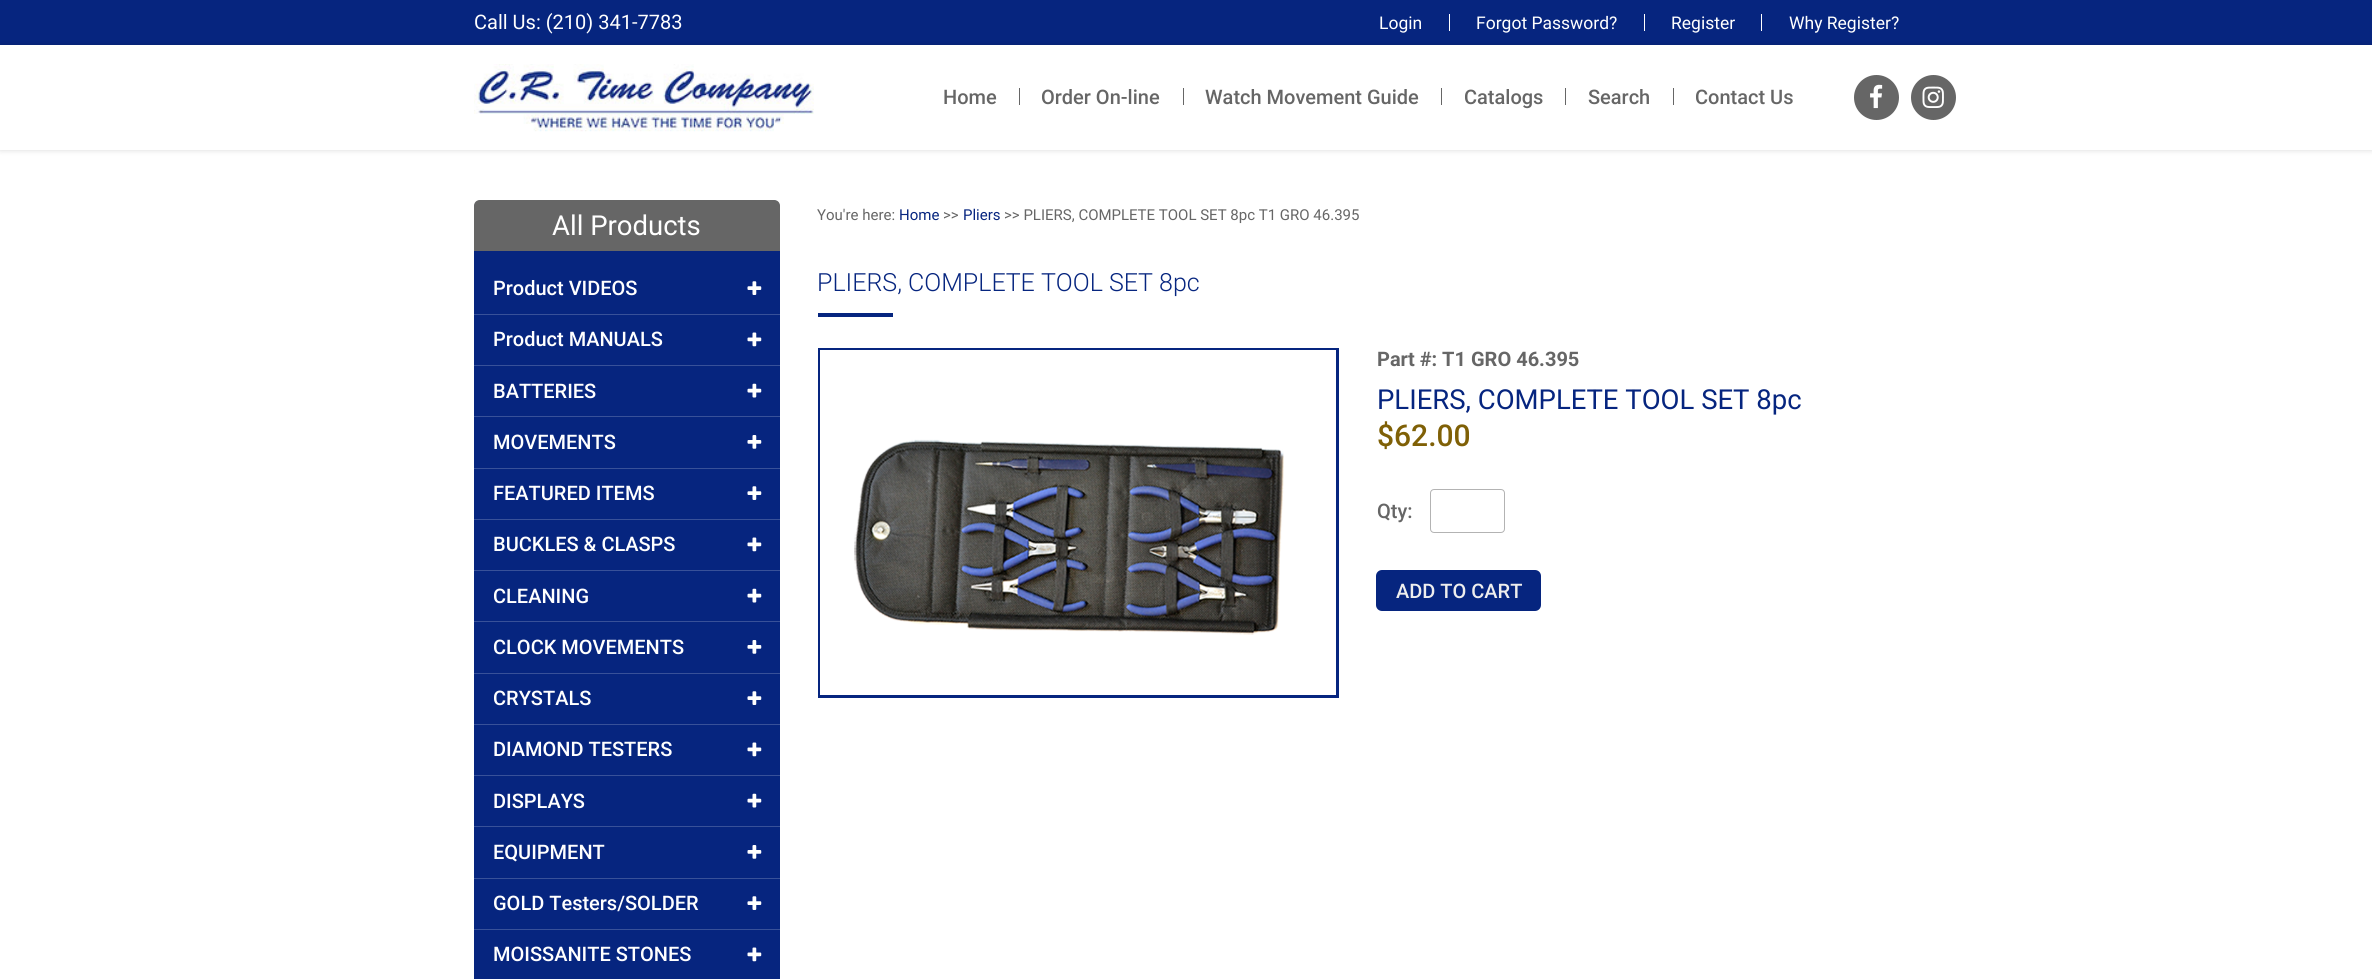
import math
import cairo

surface = cairo.ImageSurface(cairo.Format.RGB24, 2372, 979)
ctx = cairo.Context(surface)
options = cairo.FontOptions()
options.set_hint_metrics(cairo.HintMetrics.OFF)
options.set_hint_style(cairo.HintStyle.NONE)
ctx.set_font_options(options)
ctx.set_miter_limit(4)


def ink(r, g, b):
    ctx.set_source_rgb(r / 255, g / 255, b / 255)


def write(x, y, s, family, size, color, bold=False, italic=False):
    ctx.select_font_face(family, cairo.FontSlant.ITALIC if italic else cairo.FontSlant.NORMAL, cairo.FontWeight.BOLD if bold else cairo.FontWeight.NORMAL)
    ctx.set_font_size(size)
    ink(*color)
    ctx.move_to(x, y)
    ctx.show_text(s)


def block(x, y, w, h, *color):
    ink(*color)
    ctx.rectangle(x, y, w, h)
    ctx.fill()


def round_path(x, y, w, h, r):
    ctx.new_sub_path()
    for i, (u, v) in enumerate([(x + w - r, y + h - r), (x + r, y + h - r), (x + r, y + r), (x + w - r, y + r)]):
        ctx.arc(u, v, r, i * math.pi / 2, (i + 1) * math.pi / 2)
    ctx.close_path()


def blur_box(x, y, w, h, r, blur, alpha):
    ctx.push_group_with_content(cairo.Content.ALPHA)
    ctx.set_operator(cairo.Operator.SOURCE)
    for i in range(15, -16, -2):
        e = blur * i / 6
        if min(w, h) + 2 * e > 0:
            ctx.set_source_rgba(0, 0, 0, alpha * math.erfc((i - 1) / 8.5) / 2)
            round_path(x - e, y - e, w + 2 * e, h + 2 * e, max(0, min(r + e + blur * .6, min(w, h) / 2 + e)))
            ctx.fill()
    ctx.mask(ctx.pop_group())


def paste(path, x, y, w, h):
    ctx.save()
    ctx.set_source_surface(cairo.ImageSurface.create_from_png(path), x, y)
    ctx.rectangle(x, y, w, h)
    ctx.fill()
    ctx.restore()


s1 = dict(family="Roboto", size=20, color=(255, 255, 255))
s2 = dict(family="Roboto", size=17.5, color=(255, 255, 255))
s3 = dict(family="Roboto Medium", size=20, color=(102, 102, 102))
s4 = dict(family="Roboto", size=27.5, color=(255, 255, 255))
s5 = dict(family="Roboto Medium", size=20, color=(255, 255, 255))
s6 = dict(family="Roboto", size=15, color=(102, 102, 102))
s7 = dict(family="Roboto", size=15, color=(6, 37, 127))
s8 = dict(family="Roboto Light", size=25, color=(6, 37, 127))
s9 = dict(family="Roboto", size=20, color=(102, 102, 102), bold=True)
s10 = dict(family="Roboto", size=27.5, color=(6, 37, 127))
s11 = dict(family="Roboto Medium", size=30, color=(127, 96, 6))
s12 = dict(family="Roboto Medium", size=20, color=(238, 238, 238))

ink(255, 255, 255)
ctx.paint()
block(0, 0, 2372, 45, 6, 37, 127)
write(474, 29, "Call Us: (210) 341-7783", **s1)
write(1379, 29, "Login", **s2)
block(1449, 14, 1, 17, 255, 255, 255)
write(1476, 29, "Forgot Password?", **s2)
block(1644, 14, 1, 17, 255, 255, 255)
write(1671, 29, "Register", **s2)
block(1761, 14, 1, 17, 255, 255, 255)
write(1789, 29, "Why Register?", **s2)
ctx.save()
ctx.set_fill_rule(cairo.FillRule.EVEN_ODD)
ctx.new_path()
ctx.move_to(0, 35)
ctx.line_to(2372, 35)
ctx.line_to(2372, 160)
ctx.line_to(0, 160)
ctx.close_path()
ctx.move_to(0, 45)
ctx.line_to(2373, 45)
ctx.line_to(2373, 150)
ctx.line_to(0, 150)
ctx.close_path()
ctx.clip()
ink(0, 0, 0)
blur_box(0, 45, 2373, 105, 0, 3, 0.15)
ctx.restore()
paste("pic1.png", 474, 64, 340, 68)
write(943, 104, "Home", **s3)
block(1019, 88, 1, 17, 102, 102, 102)
write(1041, 104, "Order On-line", **s3)
block(1183, 88, 1, 17, 102, 102, 102)
write(1205, 104, "Watch Movement Guide", **s3)
block(1441, 88, 1, 17, 102, 102, 102)
write(1464, 104, "Catalogs", **s3)
block(1565, 88, 1, 17, 102, 102, 102)
write(1588, 104, "Search", **s3)
block(1673, 88, 1, 17, 102, 102, 102)
write(1695, 104, "Contact Us", **s3)
ctx.new_path()
ctx.arc(1876.5, 97.5, 22.5, 0, 2 * math.pi)
ctx.fill()
paste("pic2.png", 1870, 84, 13, 25)
ctx.arc(1933.5, 97.5, 22.5, 0, 2 * math.pi)
ctx.fill()
paste("pic3.png", 1922, 86, 22, 22)
ink(6, 37, 127)
ctx.new_path()
ctx.move_to(482, 200)
ctx.line_to(772, 200)
ctx.curve_to(776.5, 200, 780, 203.5, 780, 208)
ctx.line_to(780, 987)
ctx.line_to(474, 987)
ctx.line_to(474, 208)
ctx.curve_to(474, 203.5, 477.5, 200, 482, 200)
ctx.close_path()
ctx.fill()
ink(102, 102, 102)
ctx.new_path()
ctx.move_to(480, 200)
ctx.line_to(774, 200)
ctx.curve_to(777.5, 200, 780, 202.5, 780, 206)
ctx.line_to(780, 251)
ctx.line_to(474, 251)
ctx.line_to(474, 206)
ctx.curve_to(474, 202.5, 476.5, 200, 480, 200)
ctx.close_path()
ctx.fill()
write(552, 235, "All Products", **s4)
write(493, 295, "Product VIDEOS", **s5)
paste("pic4.png", 747, 281, 15, 14)
block(474, 314, 306, 1, 56, 81, 153)
write(493, 346, "Product MANUALS", **s5)
paste("pic5.png", 747, 332, 15, 15)
block(474, 365, 306, 1, 56, 81, 153)
write(493, 398, "BATTERIES", **s5)
paste("pic6.png", 747, 383, 15, 15)
block(474, 416, 306, 1, 56, 81, 153)
write(493, 449, "MOVEMENTS", **s5)
paste("pic7.png", 747, 435, 15, 14)
block(474, 468, 306, 1, 56, 81, 153)
write(493, 500, "FEATURED ITEMS", **s5)
paste("pic4.png", 747, 486, 15, 14)
block(474, 519, 306, 1, 56, 81, 153)
write(493, 551, "BUCKLES & CLASPS", **s5)
paste("pic5.png", 747, 537, 15, 15)
block(474, 570, 306, 1, 56, 81, 153)
write(493, 603, "CLEANING", **s5)
paste("pic6.png", 747, 588, 15, 15)
block(474, 621, 306, 1, 56, 81, 153)
write(493, 654, "CLOCK MOVEMENTS", **s5)
paste("pic7.png", 747, 640, 15, 14)
block(474, 673, 306, 1, 56, 81, 153)
write(493, 705, "CRYSTALS", **s5)
paste("pic4.png", 747, 691, 15, 14)
block(474, 724, 306, 1, 56, 81, 153)
write(493, 756, "DIAMOND TESTERS", **s5)
paste("pic5.png", 747, 742, 15, 15)
block(474, 775, 306, 1, 56, 81, 153)
write(493, 808, "DISPLAYS", **s5)
paste("pic6.png", 747, 793, 15, 15)
block(474, 826, 306, 1, 56, 81, 153)
write(493, 859, "EQUIPMENT", **s5)
paste("pic7.png", 747, 845, 15, 14)
block(474, 878, 306, 1, 56, 81, 153)
write(493, 910, "GOLD Testers/SOLDER", **s5)
paste("pic4.png", 747, 896, 15, 14)
block(474, 929, 306, 1, 56, 81, 153)
write(493, 961, "MOISSANITE STONES", **s5)
paste("pic5.png", 747, 947, 15, 15)
write(817, 220, "You're here:", **s6)
write(899, 220, "Home", **s7)
write(943, 220, ">>", **s6)
write(963, 220, "Pliers", **s7)
write(1004, 220, ">> PLIERS, COMPLETE TOOL SET 8pc T1 GRO 46.395", **s6)
write(817, 291, "PLIERS, COMPLETE TOOL SET 8pc", **s8)
block(818, 313, 75, 4, 6, 37, 127)
ctx.rectangle(819.5, 349.5, 518, 347)
ctx.set_line_width(3)
ctx.stroke()
ctx.rectangle(820.5, 350.5, 515, 344)
ink(255, 255, 255)
ctx.set_line_width(1)
ctx.stroke()
paste("pic8.png", 854, 439, 430, 196)
write(1377, 366, "Part #: T1 GRO 46.395", **s9)
write(1377, 409, "PLIERS, COMPLETE TOOL SET 8pc", **s10)
write(1377, 446, "$62.00", **s11)
write(1377, 518, "Qty:", **s3)
round_path(1430.5, 489.5, 74, 43, 3.5)
ink(179, 179, 179)
ctx.stroke()
ink(6, 37, 127)
round_path(1376, 570, 165, 41, 6)
ctx.fill()
write(1396, 598, "ADD TO CART", **s12)
surface.write_to_png("screenshot.png")
